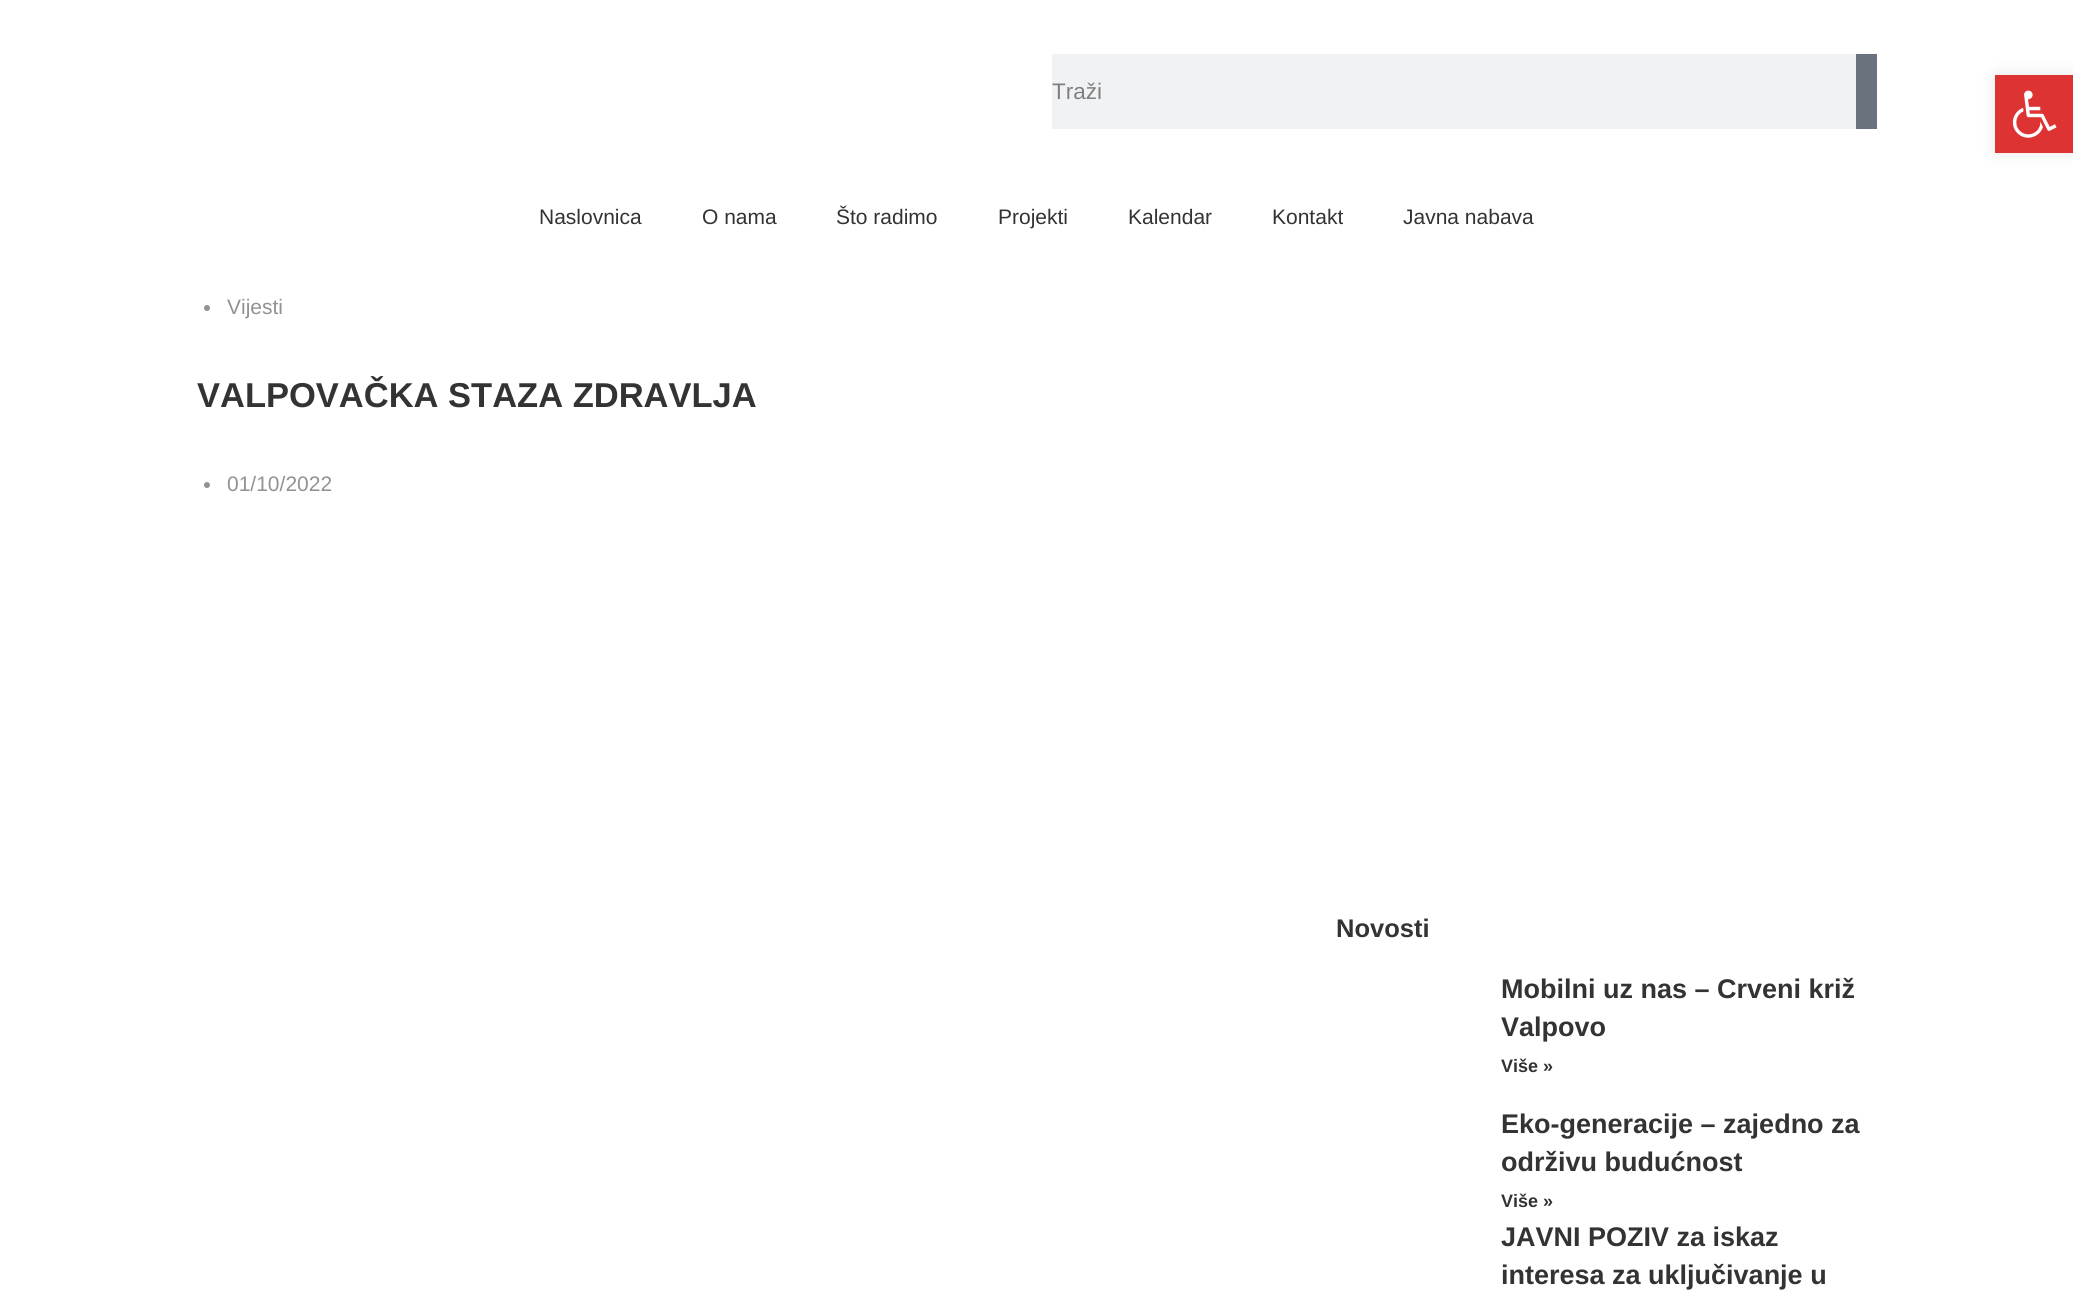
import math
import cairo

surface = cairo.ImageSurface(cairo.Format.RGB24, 2073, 1291)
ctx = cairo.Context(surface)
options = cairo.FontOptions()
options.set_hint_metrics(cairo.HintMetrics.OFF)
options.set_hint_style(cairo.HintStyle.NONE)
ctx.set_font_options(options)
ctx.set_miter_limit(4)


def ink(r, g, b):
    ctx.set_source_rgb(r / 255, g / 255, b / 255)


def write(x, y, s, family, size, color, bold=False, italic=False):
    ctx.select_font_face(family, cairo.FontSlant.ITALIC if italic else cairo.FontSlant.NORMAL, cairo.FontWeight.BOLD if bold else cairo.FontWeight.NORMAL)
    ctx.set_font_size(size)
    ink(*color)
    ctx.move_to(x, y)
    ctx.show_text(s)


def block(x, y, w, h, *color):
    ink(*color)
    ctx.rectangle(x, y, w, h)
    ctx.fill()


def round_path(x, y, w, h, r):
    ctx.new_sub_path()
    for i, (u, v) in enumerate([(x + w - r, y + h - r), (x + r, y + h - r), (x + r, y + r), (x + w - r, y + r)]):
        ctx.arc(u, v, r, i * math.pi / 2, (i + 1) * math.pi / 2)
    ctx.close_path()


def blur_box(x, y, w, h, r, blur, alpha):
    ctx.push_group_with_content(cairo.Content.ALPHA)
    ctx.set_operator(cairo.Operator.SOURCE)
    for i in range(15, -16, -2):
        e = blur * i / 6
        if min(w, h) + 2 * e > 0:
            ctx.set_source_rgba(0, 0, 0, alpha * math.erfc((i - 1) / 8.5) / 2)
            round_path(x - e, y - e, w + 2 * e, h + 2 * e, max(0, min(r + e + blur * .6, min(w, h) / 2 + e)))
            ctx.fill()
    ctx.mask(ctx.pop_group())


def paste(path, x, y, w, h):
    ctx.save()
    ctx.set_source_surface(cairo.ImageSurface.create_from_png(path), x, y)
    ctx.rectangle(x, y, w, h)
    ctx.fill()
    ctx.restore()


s1 = dict(family="Liberation Sans", size=22.5, color=(127, 127, 128))
s2 = dict(family="Liberation Sans", size=21, color=(51, 51, 51))
s3 = dict(family="Liberation Sans", size=21, color=(146, 146, 146))
s4 = dict(family="Liberation Sans", size=34.5, color=(51, 51, 51), bold=True)
s5 = dict(family="Liberation Sans", size=25.5, color=(51, 51, 51), bold=True)
s6 = dict(family="Liberation Sans", size=27, color=(51, 51, 51), bold=True)
s7 = dict(family="Liberation Sans", size=18, color=(51, 51, 51), bold=True)

ink(255, 255, 255)
ctx.paint()
block(1052, 54, 804, 75, 241, 242, 243)
write(1052, 99, "Traži", **s1)
block(1856, 54, 21, 75, 105, 114, 125)
write(539, 224, "Naslovnica", **s2)
write(702, 224, "O nama", **s2)
write(836, 224, "Što radimo", **s2)
write(998, 224, "Projekti", **s2)
write(1128, 224, "Kalendar", **s2)
write(1272, 224, "Kontakt", **s2)
write(1403, 224, "Javna nabava", **s2)
ink(0, 0, 0)
blur_box(1995, 75, 78, 78, 0, 7.5, 0.1)
block(1995, 75, 78, 78, 221, 51, 51)
paste("pic1.png", 2012, 90, 45, 48)
ink(146, 146, 146)
ctx.arc(207, 308, 3, 0, 2 * math.pi)
ctx.fill()
write(227, 314, "Vijesti", **s3)
write(197, 407, "VALPOVAČKA STAZA ZDRAVLJA", **s4)
ink(146, 146, 146)
ctx.new_path()
ctx.arc(207, 485, 3, 0, 2 * math.pi)
ctx.fill()
write(227, 491, "01/10/2022", **s3)
write(1336, 937, "Novosti", **s5)
write(1501, 998, "Mobilni uz nas – Crveni križ", **s6)
write(1501, 1036, "Valpovo", **s6)
write(1501, 1072, "Više »", **s7)
write(1501, 1133, "Eko-generacije – zajedno za", **s6)
write(1501, 1171, "održivu budućnost", **s6)
write(1501, 1207, "Više »", **s7)
write(1501, 1246, "JAVNI POZIV za iskaz", **s6)
write(1501, 1284, "interesa za uključivanje u", **s6)
surface.write_to_png("screenshot.png")
